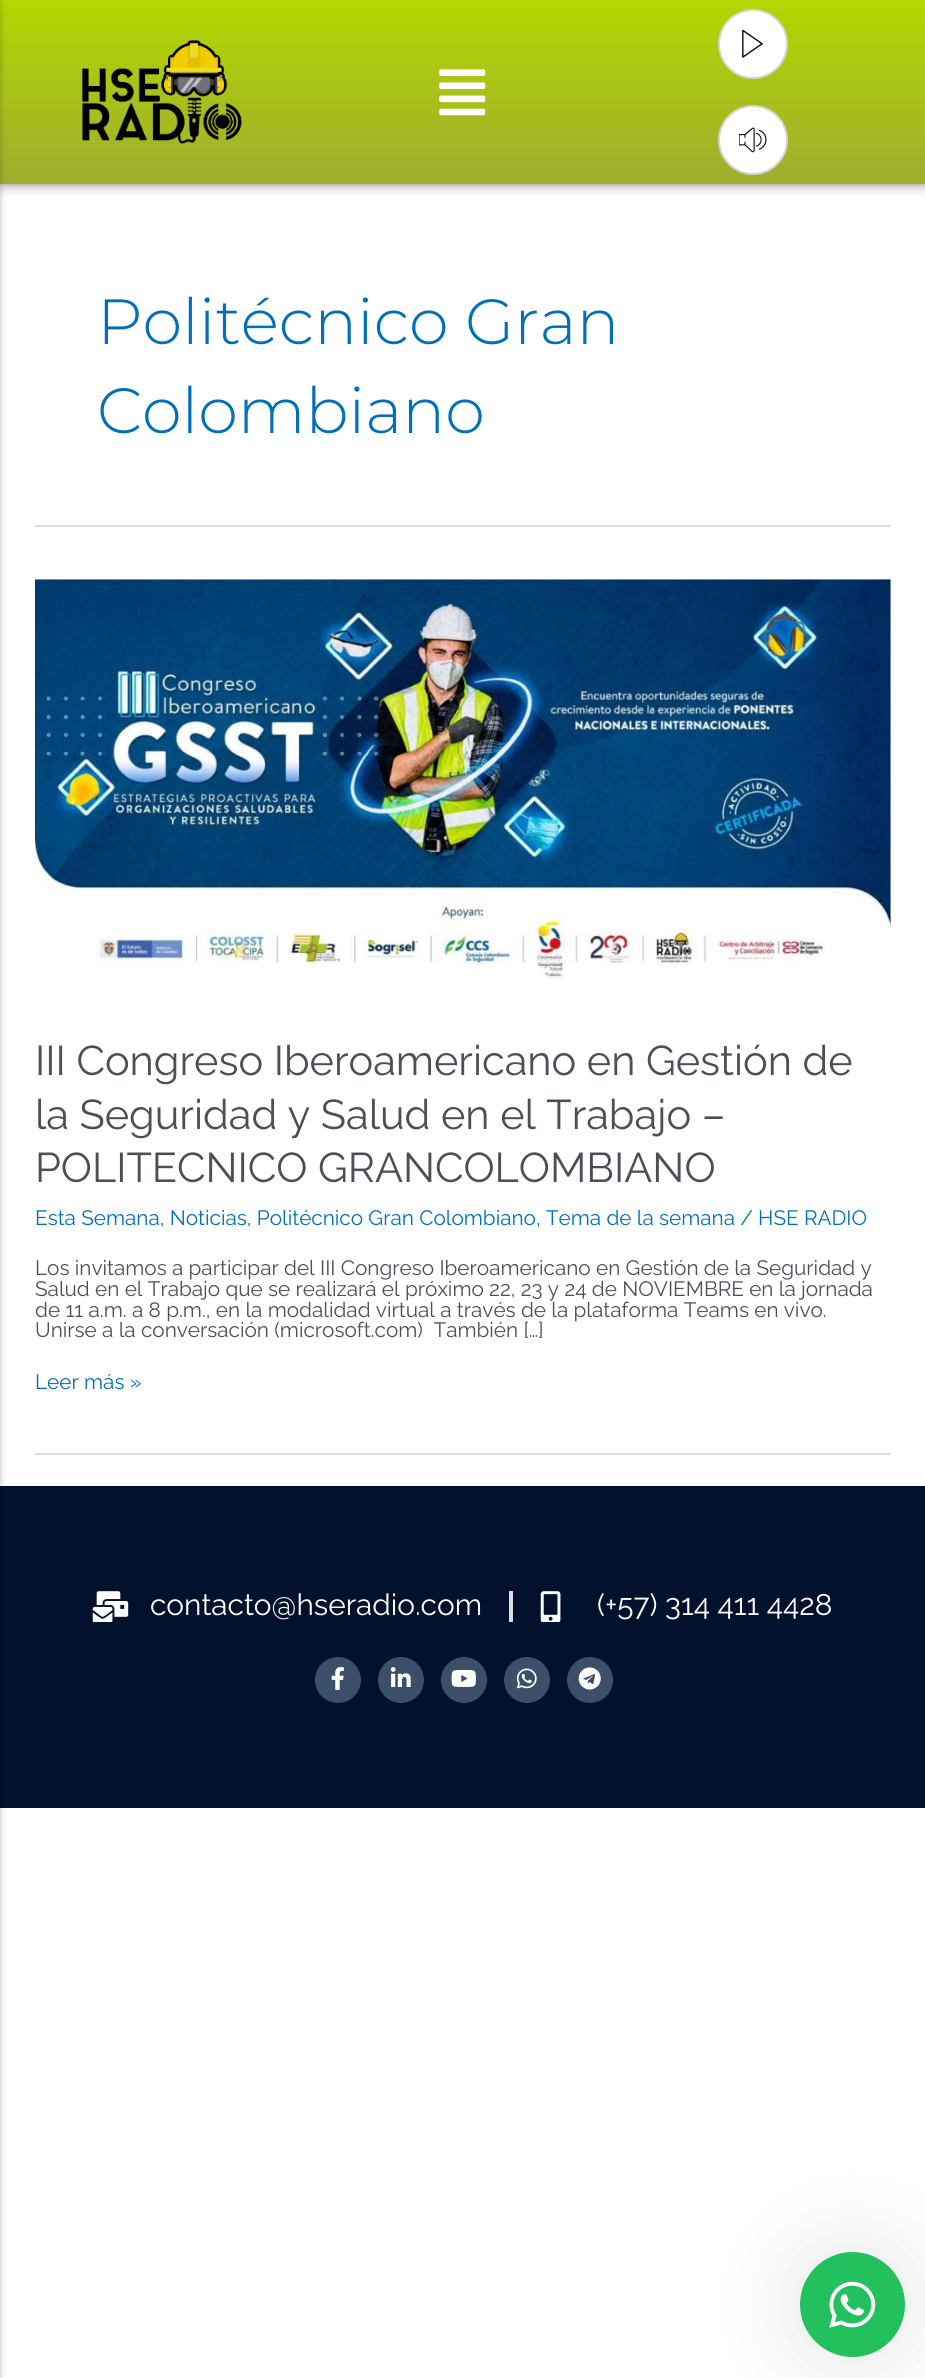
import math
import cairo

surface = cairo.ImageSurface(cairo.Format.RGB24, 925, 2378)
ctx = cairo.Context(surface)
options = cairo.FontOptions()
options.set_hint_metrics(cairo.HintMetrics.OFF)
options.set_hint_style(cairo.HintStyle.NONE)
ctx.set_font_options(options)
ctx.set_miter_limit(4)


def ink(r, g, b):
    ctx.set_source_rgb(r / 255, g / 255, b / 255)


def write(x, y, s, family, size, color, bold=False, italic=False):
    ctx.select_font_face(family, cairo.FontSlant.ITALIC if italic else cairo.FontSlant.NORMAL, cairo.FontWeight.BOLD if bold else cairo.FontWeight.NORMAL)
    ctx.set_font_size(size)
    ink(*color)
    ctx.move_to(x, y)
    ctx.show_text(s)


def block(x, y, w, h, *color):
    ink(*color)
    ctx.rectangle(x, y, w, h)
    ctx.fill()


def round_path(x, y, w, h, r):
    ctx.new_sub_path()
    for i, (u, v) in enumerate([(x + w - r, y + h - r), (x + r, y + h - r), (x + r, y + r), (x + w - r, y + r)]):
        ctx.arc(u, v, r, i * math.pi / 2, (i + 1) * math.pi / 2)
    ctx.close_path()


def blur_box(x, y, w, h, r, blur, alpha):
    ctx.push_group_with_content(cairo.Content.ALPHA)
    ctx.set_operator(cairo.Operator.SOURCE)
    for i in range(15, -16, -2):
        e = blur * i / 6
        if min(w, h) + 2 * e > 0:
            ctx.set_source_rgba(0, 0, 0, alpha * math.erfc((i - 1) / 8.5) / 2)
            round_path(x - e, y - e, w + 2 * e, h + 2 * e, max(0, min(r + e + blur * .6, min(w, h) / 2 + e)))
            ctx.fill()
    ctx.mask(ctx.pop_group())


def paste(path, x, y, w, h):
    ctx.save()
    ctx.set_source_surface(cairo.ImageSurface.create_from_png(path), x, y)
    ctx.rectangle(x, y, w, h)
    ctx.fill()
    ctx.restore()


s1 = dict(family="Montserrat Light", size=63.75, color=(1, 112, 185))
s2 = dict(family="Raleway", size=41.5, color=(75, 79, 88))
s3 = dict(family="Raleway", size=20.75, color=(1, 112, 185))
s4 = dict(family="Raleway", size=20.75, color=(75, 79, 88))
s5 = dict(family="Raleway", size=29.75, color=(255, 255, 255))

ink(255, 255, 255)
ctx.paint()
ink(0, 0, 0)
blur_box(0, 0, 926, 184, 0, 6, 0.5)
gradient = cairo.LinearGradient(463, 0, 463, 184)
gradient.add_color_stop_rgba(0, 0.702, 0.843, 0.004, 1)
gradient.add_color_stop_rgba(1, 0.627, 0.678, 0.188, 1)
ctx.set_source(gradient)
ctx.rectangle(0, 0, 925, 184)
ctx.fill()
block(0, 1486, 925, 322, 2, 18, 45)
ink(0, 0, 0)
blur_box(-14, 2, 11, 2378, 0, 4.5, 0.5)
paste("pic1.png", 439, 69, 47, 47)
ink(255, 255, 255)
ctx.arc(753, 44, 34, 0, 2 * math.pi)
ctx.fill_preserve()
ink(213, 213, 213)
ctx.stroke()
paste("pic2.png", 742, 30, 21, 28)
ink(255, 255, 255)
ctx.arc(753, 140, 34, 0, 2 * math.pi)
ctx.fill_preserve()
ink(213, 213, 213)
ctx.stroke()
paste("pic3.png", 739, 127, 28, 26)
paste("pic4.png", 82, 40, 160, 104)
block(35, 525, 856, 2, 221, 221, 221)
write(97, 344, "Politécnico Gran", **s1)
write(97, 433, "Colombiano", **s1)
block(35, 1453, 856, 2, 221, 221, 221)
paste("pic5.png", 35, 579, 856, 401)
write(35, 1075, "III Congreso Iberoamericano en Gestión de", **s2)
write(35, 1129, "la Seguridad y Salud en el Trabajo –", **s2)
write(35, 1182, "POLITECNICO GRANCOLOMBIANO", **s2)
write(35, 1225, "Esta Semana, Noticias, Politécnico Gran Colombiano, Tema de la semana / HSE RADIO", **s3)
write(35, 1275, "Los invitamos a participar del III Congreso Iberoamericano en Gestión de la Seguridad y", **s4)
write(35, 1296, "Salud en el Trabajo que se realizará el próximo 22, 23 y 24 de NOVIEMBRE en la jornada", **s4)
write(35, 1317, "de 11 a.m. a 8 p.m., en la modalidad virtual a través de la plataforma Teams en vivo.", **s4)
write(35, 1337, "Unirse a la conversación (microsoft.com)  También […]", **s4)
write(35, 1389, "Leer más »", **s3)
paste("pic6.png", 92, 1591, 37, 31)
write(150, 1615, "contacto@hseradio.com", **s5)
block(509, 1591, 4, 31, 221, 221, 221)
paste("pic7.png", 540, 1591, 21, 31)
write(597, 1615, "(+57) 314 411 4428", **s5)
ink(59, 79, 104)
ctx.new_path()
ctx.arc(338, 1680, 23, 0, 2 * math.pi)
ctx.fill()
paste("pic8.png", 331, 1667, 13, 23)
ctx.arc(401, 1680, 23, 0, 2 * math.pi)
ctx.fill()
paste("pic9.png", 390, 1667, 21, 20)
ctx.arc(464, 1680, 23, 0, 2 * math.pi)
ctx.fill()
paste("pic10.png", 451, 1669, 25, 18)
ctx.arc(527, 1680, 23, 0, 2 * math.pi)
ctx.fill()
paste("pic11.png", 516, 1668, 21, 21)
ctx.arc(590, 1680, 23, 0, 2 * math.pi)
ctx.fill()
paste("pic12.png", 578, 1667, 23, 23)
ink(0, 0, 0)
blur_box(800, 2252, 105, 105, 52.5, 44, 0.1)
ink(34, 193, 94)
ctx.arc(852.5, 2304.5, 52.5, 0, 2 * math.pi)
ctx.fill()
paste("pic13.png", 829, 2281, 47, 47)
surface.write_to_png("screenshot.png")
